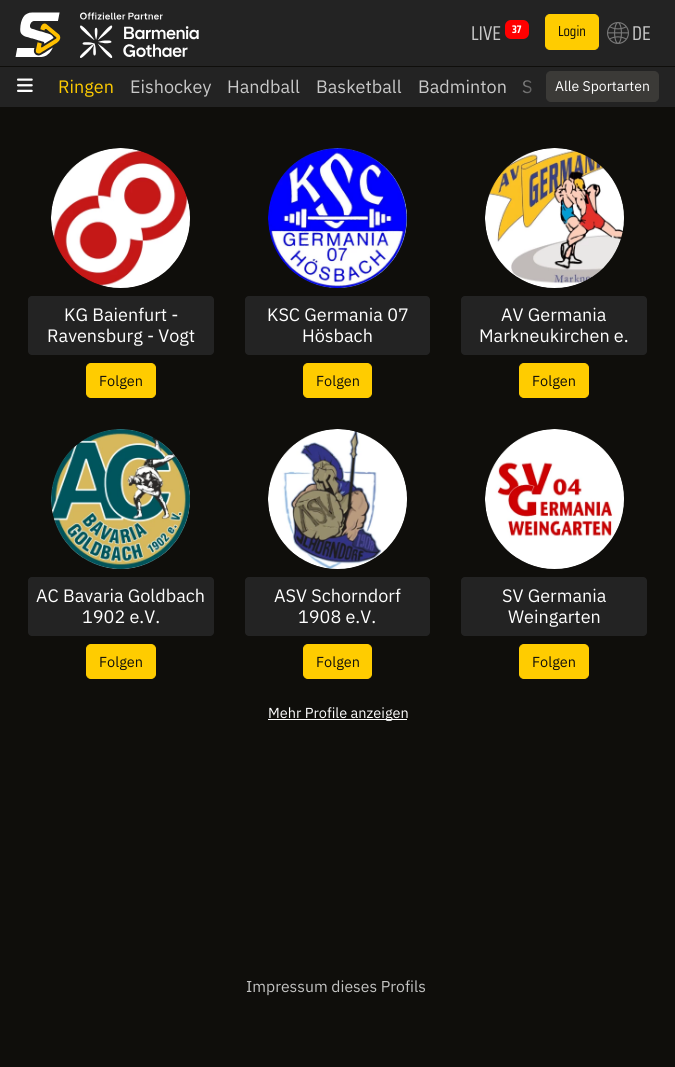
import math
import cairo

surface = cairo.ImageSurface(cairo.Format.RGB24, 675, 1067)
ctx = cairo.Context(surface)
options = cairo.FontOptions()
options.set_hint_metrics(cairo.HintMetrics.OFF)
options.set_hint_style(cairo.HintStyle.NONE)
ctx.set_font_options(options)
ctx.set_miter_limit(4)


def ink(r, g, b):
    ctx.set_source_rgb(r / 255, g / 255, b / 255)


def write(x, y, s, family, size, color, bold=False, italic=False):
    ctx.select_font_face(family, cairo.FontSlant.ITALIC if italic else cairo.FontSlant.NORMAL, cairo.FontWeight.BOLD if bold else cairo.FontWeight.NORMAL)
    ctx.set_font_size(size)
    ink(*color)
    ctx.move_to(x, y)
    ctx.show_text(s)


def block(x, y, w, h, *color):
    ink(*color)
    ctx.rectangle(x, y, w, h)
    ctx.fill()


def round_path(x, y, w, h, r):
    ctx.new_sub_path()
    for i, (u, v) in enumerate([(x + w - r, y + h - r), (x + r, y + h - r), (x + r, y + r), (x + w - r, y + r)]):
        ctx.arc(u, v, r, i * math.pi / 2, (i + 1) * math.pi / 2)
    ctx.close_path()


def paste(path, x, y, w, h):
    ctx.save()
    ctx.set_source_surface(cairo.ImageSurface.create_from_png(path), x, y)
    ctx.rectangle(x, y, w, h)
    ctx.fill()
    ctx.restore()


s1 = dict(family="Saira Condensed", size=20, color=(200, 200, 200))
s2 = dict(family="Saira Condensed", size=11, color=(255, 255, 255), bold=True)
s3 = dict(family="Saira Condensed", size=14.5, color=(15, 14, 11))
s4 = dict(family="IBM Plex Sans", size=18, color=(255, 204, 0))
s5 = dict(family="IBM Plex Sans", size=18, color=(200, 200, 200))
s6 = dict(family="IBM Plex Sans", size=14, color=(255, 255, 255))
s7 = dict(family="IBM Plex Sans", size=18, color=(255, 255, 255))
s8 = dict(family="IBM Plex Sans", size=14.5, color=(15, 14, 11))
s9 = dict(family="IBM Plex Sans", size=14.5, color=(255, 255, 255))
s10 = dict(family="IBM Plex Sans", size=15.75, color=(195, 195, 194))

ink(15, 14, 11)
ctx.paint()
block(0, 0, 675, 66, 35, 35, 35)
paste("pic1.png", 15, 12, 184, 46)
write(471, 40, "LIVE", **s1)
ink(255, 0, 0)
round_path(505, 20, 24, 19, 6)
ctx.fill()
write(512, 33, "37", **s2)
ink(255, 204, 0)
round_path(545.5, 14.5, 53, 35, 4.5)
ctx.fill_preserve()
ctx.set_line_width(1)
ctx.stroke()
write(558, 36, "Login", **s3)
paste("pic2.png", 607, 22, 22, 22)
write(632, 40, "DE", **s1)
block(0, 67, 675, 40, 35, 35, 35)
paste("pic3.png", 17, 78, 16, 14)
write(58, 93, "Ringen", **s4)
write(130, 93, "Eishockey", **s5)
write(227, 93, "Handball", **s5)
write(316, 93, "Basketball", **s5)
write(418, 93, "Badminton", **s5)
write(522, 93, "S", **s5)
gradient = cairo.LinearGradient(506, 87, 546, 87)
gradient.add_color_stop_rgba(0, 0.137, 0.137, 0.137, 0)
gradient.add_color_stop_rgba(1, 0.137, 0.137, 0.137, 1)
ctx.set_source(gradient)
ctx.rectangle(523, 80, 9, 14)
ctx.fill()
ink(59, 58, 55)
round_path(546.5, 71.5, 112, 30, 4.5)
ctx.fill_preserve()
ctx.stroke()
write(555, 91, "Alle Sportarten", **s6)
paste("pic4.png", 51, 148, 139, 140)
ink(35, 35, 35)
round_path(28, 296, 186, 59, 4)
ctx.fill()
write(64, 321, "KG Baienfurt -", **s7)
write(47, 342, "Ravensburg - Vogt", **s7)
ink(255, 204, 0)
round_path(86.5, 363.5, 69, 34, 4.5)
ctx.fill_preserve()
ctx.stroke()
write(99, 386, "Folgen", **s8)
paste("pic5.png", 268, 148, 139, 140)
ink(35, 35, 35)
round_path(245, 296, 185, 59, 4)
ctx.fill()
write(267, 321, "KSC Germania 07", **s7)
write(302, 342, "Hösbach", **s7)
ink(255, 204, 0)
round_path(303.5, 363.5, 68, 34, 4.5)
ctx.fill_preserve()
ctx.stroke()
write(316, 386, "Folgen", **s8)
paste("pic6.png", 485, 148, 139, 140)
ink(35, 35, 35)
round_path(461, 296, 186, 59, 4)
ctx.fill()
write(501, 321, "AV Germania", **s7)
write(479, 342, "Markneukirchen e.", **s7)
ink(255, 204, 0)
round_path(519.5, 363.5, 69, 34, 4.5)
ctx.fill_preserve()
ctx.stroke()
write(532, 386, "Folgen", **s8)
paste("pic7.png", 51, 429, 139, 140)
ink(35, 35, 35)
round_path(28, 577, 186, 59, 4)
ctx.fill()
write(36, 602, "AC Bavaria Goldbach", **s7)
write(82, 623, "1902 e.V.", **s7)
ink(255, 204, 0)
round_path(86.5, 644.5, 69, 34, 4.5)
ctx.fill_preserve()
ctx.stroke()
write(99, 667, "Folgen", **s8)
paste("pic8.png", 268, 429, 139, 140)
ink(35, 35, 35)
round_path(245, 577, 185, 59, 4)
ctx.fill()
write(274, 602, "ASV Schorndorf", **s7)
write(298, 623, "1908 e.V.", **s7)
ink(255, 204, 0)
round_path(303.5, 644.5, 68, 34, 4.5)
ctx.fill_preserve()
ctx.stroke()
write(316, 667, "Folgen", **s8)
paste("pic9.png", 485, 429, 139, 140)
ink(35, 35, 35)
round_path(461, 577, 186, 59, 4)
ctx.fill()
write(502, 602, "SV Germania", **s7)
write(508, 623, "Weingarten", **s7)
ink(255, 204, 0)
round_path(519.5, 644.5, 69, 34, 4.5)
ctx.fill_preserve()
ctx.stroke()
write(532, 667, "Folgen", **s8)
block(268, 719, 139, 1, 255, 255, 255)
write(268, 718, "Mehr Profile anzeigen", **s9)
write(246, 992, "Impressum dieses Profils", **s10)
surface.write_to_png("screenshot.png")
